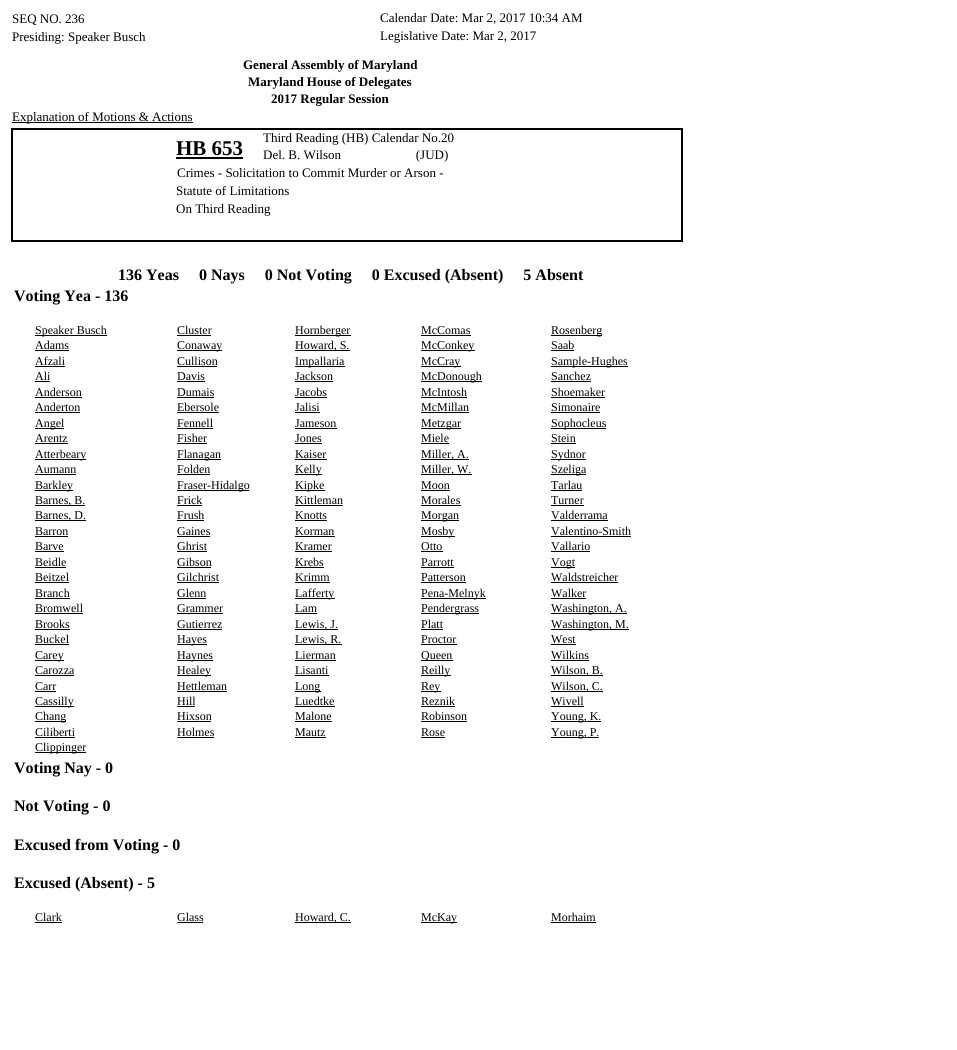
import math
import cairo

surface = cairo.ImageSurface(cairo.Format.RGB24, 957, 1050)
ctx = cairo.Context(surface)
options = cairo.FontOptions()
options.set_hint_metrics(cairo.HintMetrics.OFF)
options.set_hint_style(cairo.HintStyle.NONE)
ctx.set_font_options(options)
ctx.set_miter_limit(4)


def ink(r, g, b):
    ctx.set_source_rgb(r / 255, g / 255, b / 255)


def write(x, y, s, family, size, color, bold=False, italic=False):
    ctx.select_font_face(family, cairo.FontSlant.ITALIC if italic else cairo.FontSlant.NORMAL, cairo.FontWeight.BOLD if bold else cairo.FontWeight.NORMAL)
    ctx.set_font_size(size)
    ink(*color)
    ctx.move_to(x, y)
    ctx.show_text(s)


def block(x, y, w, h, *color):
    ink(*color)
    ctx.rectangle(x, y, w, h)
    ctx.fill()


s1 = dict(family="Liberation Serif", size=13, color=(0, 0, 0))
s2 = dict(family="Liberation Serif", size=13, color=(0, 0, 0), bold=True)
s3 = dict(family="Liberation Serif", size=21, color=(0, 0, 0), bold=True)
s4 = dict(family="Liberation Serif", size=16, color=(0, 0, 0), bold=True)
s5 = dict(family="Liberation Serif", size=12, color=(0, 0, 0))

ink(255, 255, 255)
ctx.paint()
write(12, 23, "SEQ NO. 236", **s1)
write(380, 22, "Calendar Date: Mar 2, 2017 10:34 AM", **s1)
write(12, 41, "Presiding: Speaker Busch", **s1)
write(380, 40, "Legislative Date: Mar 2, 2017", **s1)
write(243, 69, "General Assembly of Maryland", **s2)
write(248, 86, "Maryland House of Delegates", **s2)
write(271, 103, "2017 Regular Session", **s2)
block(12, 122, 181, 1, 0, 0, 0)
write(12, 121, "Explanation of Motions & Actions", **s1)
block(11, 128, 672, 2, 0, 0, 0)
block(11, 130, 2, 106, 0, 0, 0)
write(263, 142, "Third Reading (HB) Calendar No.20", **s1)
block(681, 130, 2, 112, 0, 0, 0)
write(176, 155, "HB 653", **s3)
block(176, 157, 67, 2, 0, 0, 0)
write(263, 159, "Del. B. Wilson                       (JUD)", **s1)
write(177, 177, "Crimes - Solicitation to Commit Murder or Arson -", **s1)
write(176, 195, "Statute of Limitations", **s1)
write(176, 213, "On Third Reading", **s1)
block(11, 240, 672, 2, 0, 0, 0)
block(11, 236, 2, 6, 0, 0, 0)
write(118, 280, "136 Yeas     0 Nays     0 Not Voting     0 Excused (Absent)     5 Absent", **s4)
write(14, 301, "Voting Yea - 136", **s4)
block(35, 335, 72, 1, 0, 0, 0)
write(35, 334, "Speaker Busch", **s5)
write(177, 334, "Cluster", **s5)
block(177, 335, 34, 1, 0, 0, 0)
block(295, 335, 56, 1, 0, 0, 0)
write(295, 334, "Hornberger", **s5)
write(421, 334, "McComas", **s5)
block(421, 335, 50, 1, 0, 0, 0)
block(551, 335, 51, 1, 0, 0, 0)
write(551, 334, "Rosenberg", **s5)
write(35, 349, "Adams", **s5)
block(35, 350, 34, 1, 0, 0, 0)
block(177, 350, 45, 1, 0, 0, 0)
write(177, 349, "Conaway", **s5)
block(295, 350, 55, 1, 0, 0, 0)
write(295, 349, "Howard, S.", **s5)
block(421, 350, 54, 1, 0, 0, 0)
write(421, 349, "McConkey", **s5)
write(551, 349, "Saab", **s5)
block(551, 350, 23, 1, 0, 0, 0)
write(35, 365, "Afzali", **s5)
block(35, 366, 30, 1, 0, 0, 0)
write(177, 365, "Cullison", **s5)
block(177, 366, 40, 1, 0, 0, 0)
block(295, 366, 50, 1, 0, 0, 0)
write(295, 365, "Impallaria", **s5)
block(421, 366, 40, 1, 0, 0, 0)
write(421, 365, "McCray", **s5)
block(551, 366, 77, 1, 0, 0, 0)
write(551, 365, "Sample-Hughes", **s5)
write(35, 380, "Ali", **s5)
block(35, 381, 15, 1, 0, 0, 0)
write(177, 380, "Davis", **s5)
block(177, 381, 28, 1, 0, 0, 0)
write(295, 380, "Jackson", **s5)
block(295, 381, 38, 1, 0, 0, 0)
block(421, 381, 61, 1, 0, 0, 0)
write(421, 380, "McDonough", **s5)
write(551, 380, "Sanchez", **s5)
block(551, 381, 40, 1, 0, 0, 0)
write(35, 396, "Anderson", **s5)
block(35, 397, 47, 1, 0, 0, 0)
write(177, 396, "Dumais", **s5)
block(177, 397, 37, 1, 0, 0, 0)
write(295, 396, "Jacobs", **s5)
block(295, 397, 32, 1, 0, 0, 0)
write(421, 396, "McIntosh", **s5)
block(421, 397, 46, 1, 0, 0, 0)
write(551, 396, "Shoemaker", **s5)
block(551, 397, 54, 1, 0, 0, 0)
write(35, 411, "Anderton", **s5)
block(35, 412, 45, 1, 0, 0, 0)
write(177, 411, "Ebersole", **s5)
block(177, 412, 42, 1, 0, 0, 0)
write(295, 411, "Jalisi", **s5)
block(295, 412, 25, 1, 0, 0, 0)
write(421, 411, "McMillan", **s5)
block(421, 412, 48, 1, 0, 0, 0)
write(551, 411, "Simonaire", **s5)
block(551, 412, 49, 1, 0, 0, 0)
block(35, 428, 29, 1, 0, 0, 0)
write(35, 427, "Angel", **s5)
write(177, 427, "Fennell", **s5)
block(177, 428, 36, 1, 0, 0, 0)
write(295, 427, "Jameson", **s5)
block(295, 428, 42, 1, 0, 0, 0)
block(421, 428, 40, 1, 0, 0, 0)
write(421, 427, "Metzgar", **s5)
block(551, 428, 55, 1, 0, 0, 0)
write(551, 427, "Sophocleus", **s5)
write(35, 442, "Arentz", **s5)
block(35, 443, 33, 1, 0, 0, 0)
write(177, 442, "Fisher", **s5)
block(177, 443, 30, 1, 0, 0, 0)
write(295, 442, "Jones", **s5)
block(295, 443, 27, 1, 0, 0, 0)
write(421, 442, "Miele", **s5)
block(421, 443, 28, 1, 0, 0, 0)
write(551, 442, "Stein", **s5)
block(551, 443, 25, 1, 0, 0, 0)
block(35, 459, 51, 1, 0, 0, 0)
write(35, 458, "Atterbeary", **s5)
block(177, 459, 44, 1, 0, 0, 0)
write(177, 458, "Flanagan", **s5)
write(295, 458, "Kaiser", **s5)
block(295, 459, 32, 1, 0, 0, 0)
block(421, 459, 48, 1, 0, 0, 0)
write(421, 458, "Miller, A.", **s5)
block(551, 459, 35, 1, 0, 0, 0)
write(551, 458, "Sydnor", **s5)
write(35, 473, "Aumann", **s5)
block(35, 474, 41, 1, 0, 0, 0)
write(177, 473, "Folden", **s5)
block(177, 474, 33, 1, 0, 0, 0)
block(295, 474, 27, 1, 0, 0, 0)
write(295, 473, "Kelly", **s5)
block(421, 474, 51, 1, 0, 0, 0)
write(421, 473, "Miller, W.", **s5)
block(551, 474, 35, 1, 0, 0, 0)
write(551, 473, "Szeliga", **s5)
block(35, 490, 38, 1, 0, 0, 0)
write(35, 489, "Barkley", **s5)
block(177, 490, 72, 1, 0, 0, 0)
write(177, 489, "Fraser-Hidalgo", **s5)
block(295, 490, 30, 1, 0, 0, 0)
write(295, 489, "Kipke", **s5)
write(421, 489, "Moon", **s5)
block(421, 490, 29, 1, 0, 0, 0)
write(551, 489, "Tarlau", **s5)
block(551, 490, 31, 1, 0, 0, 0)
block(35, 505, 50, 1, 0, 0, 0)
write(35, 504, "Barnes, B.", **s5)
write(177, 504, "Frick", **s5)
block(177, 505, 25, 1, 0, 0, 0)
write(295, 504, "Kittleman", **s5)
block(295, 505, 48, 1, 0, 0, 0)
write(421, 504, "Morales", **s5)
block(421, 505, 40, 1, 0, 0, 0)
write(551, 504, "Turner", **s5)
block(551, 505, 33, 1, 0, 0, 0)
block(35, 520, 51, 1, 0, 0, 0)
write(35, 519, "Barnes, D.", **s5)
write(177, 519, "Frush", **s5)
block(177, 520, 27, 1, 0, 0, 0)
write(295, 519, "Knotts", **s5)
block(295, 520, 32, 1, 0, 0, 0)
block(421, 520, 38, 1, 0, 0, 0)
write(421, 519, "Morgan", **s5)
write(551, 519, "Valderrama", **s5)
block(551, 520, 57, 1, 0, 0, 0)
write(35, 535, "Barron", **s5)
block(35, 536, 33, 1, 0, 0, 0)
write(177, 535, "Gaines", **s5)
block(177, 536, 33, 1, 0, 0, 0)
write(295, 535, "Korman", **s5)
block(295, 536, 40, 1, 0, 0, 0)
block(421, 536, 34, 1, 0, 0, 0)
write(421, 535, "Mosby", **s5)
write(551, 535, "Valentino-Smith", **s5)
block(551, 536, 80, 1, 0, 0, 0)
write(35, 550, "Barve", **s5)
block(35, 551, 29, 1, 0, 0, 0)
write(177, 550, "Ghrist", **s5)
block(177, 551, 30, 1, 0, 0, 0)
write(295, 550, "Kramer", **s5)
block(295, 551, 37, 1, 0, 0, 0)
write(421, 550, "Otto", **s5)
block(421, 551, 22, 1, 0, 0, 0)
write(551, 550, "Vallario", **s5)
block(551, 551, 39, 1, 0, 0, 0)
write(35, 566, "Beidle", **s5)
block(35, 567, 31, 1, 0, 0, 0)
write(177, 566, "Gibson", **s5)
block(177, 567, 34, 1, 0, 0, 0)
write(295, 566, "Krebs", **s5)
block(295, 567, 29, 1, 0, 0, 0)
write(421, 566, "Parrott", **s5)
block(421, 567, 33, 1, 0, 0, 0)
block(551, 567, 24, 1, 0, 0, 0)
write(551, 566, "Vogt", **s5)
write(35, 581, "Beitzel", **s5)
block(35, 582, 34, 1, 0, 0, 0)
write(177, 581, "Gilchrist", **s5)
block(177, 582, 42, 1, 0, 0, 0)
write(295, 581, "Krimm", **s5)
block(295, 582, 35, 1, 0, 0, 0)
write(421, 581, "Patterson", **s5)
block(421, 582, 45, 1, 0, 0, 0)
write(551, 581, "Waldstreicher", **s5)
block(551, 582, 67, 1, 0, 0, 0)
write(35, 597, "Branch", **s5)
block(35, 598, 35, 1, 0, 0, 0)
write(177, 597, "Glenn", **s5)
block(177, 598, 29, 1, 0, 0, 0)
block(295, 598, 40, 1, 0, 0, 0)
write(295, 597, "Lafferty", **s5)
block(421, 598, 65, 1, 0, 0, 0)
write(421, 597, "Pena-Melnyk", **s5)
write(551, 597, "Walker", **s5)
block(551, 598, 35, 1, 0, 0, 0)
write(35, 612, "Bromwell", **s5)
block(35, 613, 48, 1, 0, 0, 0)
write(177, 612, "Grammer", **s5)
block(177, 613, 46, 1, 0, 0, 0)
write(295, 612, "Lam", **s5)
block(295, 613, 22, 1, 0, 0, 0)
block(421, 613, 58, 1, 0, 0, 0)
write(421, 612, "Pendergrass", **s5)
block(551, 613, 76, 1, 0, 0, 0)
write(551, 612, "Washington, A.", **s5)
write(35, 628, "Brooks", **s5)
block(35, 629, 35, 1, 0, 0, 0)
write(177, 628, "Gutierrez", **s5)
block(177, 629, 45, 1, 0, 0, 0)
block(295, 629, 43, 1, 0, 0, 0)
write(295, 628, "Lewis, J.", **s5)
write(421, 628, "Platt", **s5)
block(421, 629, 22, 1, 0, 0, 0)
block(551, 629, 78, 1, 0, 0, 0)
write(551, 628, "Washington, M.", **s5)
write(35, 643, "Buckel", **s5)
block(35, 644, 34, 1, 0, 0, 0)
block(177, 644, 30, 1, 0, 0, 0)
write(177, 643, "Hayes", **s5)
block(295, 644, 47, 1, 0, 0, 0)
write(295, 643, "Lewis, R.", **s5)
write(421, 643, "Proctor", **s5)
block(421, 644, 36, 1, 0, 0, 0)
write(551, 643, "West", **s5)
block(551, 644, 25, 1, 0, 0, 0)
block(35, 660, 29, 1, 0, 0, 0)
write(35, 659, "Carey", **s5)
block(177, 660, 36, 1, 0, 0, 0)
write(177, 659, "Haynes", **s5)
write(295, 659, "Lierman", **s5)
block(295, 660, 41, 1, 0, 0, 0)
block(421, 660, 32, 1, 0, 0, 0)
write(421, 659, "Queen", **s5)
write(551, 659, "Wilkins", **s5)
block(551, 660, 38, 1, 0, 0, 0)
write(35, 674, "Carozza", **s5)
block(35, 675, 39, 1, 0, 0, 0)
block(177, 675, 34, 1, 0, 0, 0)
write(177, 674, "Healey", **s5)
write(295, 674, "Lisanti", **s5)
block(295, 675, 34, 1, 0, 0, 0)
block(421, 675, 30, 1, 0, 0, 0)
write(421, 674, "Reilly", **s5)
block(551, 675, 52, 1, 0, 0, 0)
write(551, 674, "Wilson, B.", **s5)
write(35, 690, "Carr", **s5)
block(35, 691, 21, 1, 0, 0, 0)
write(177, 690, "Hettleman", **s5)
block(177, 691, 50, 1, 0, 0, 0)
block(295, 691, 26, 1, 0, 0, 0)
write(295, 690, "Long", **s5)
block(421, 691, 20, 1, 0, 0, 0)
write(421, 690, "Rey", **s5)
block(551, 691, 52, 1, 0, 0, 0)
write(551, 690, "Wilson, C.", **s5)
block(35, 706, 39, 1, 0, 0, 0)
write(35, 705, "Cassilly", **s5)
write(177, 705, "Hill", **s5)
block(177, 706, 18, 1, 0, 0, 0)
write(295, 705, "Luedtke", **s5)
block(295, 706, 40, 1, 0, 0, 0)
write(421, 705, "Reznik", **s5)
block(421, 706, 34, 1, 0, 0, 0)
write(551, 705, "Wivell", **s5)
block(551, 706, 33, 1, 0, 0, 0)
block(35, 721, 31, 1, 0, 0, 0)
write(35, 720, "Chang", **s5)
write(177, 720, "Hixson", **s5)
block(177, 721, 34, 1, 0, 0, 0)
write(295, 720, "Malone", **s5)
block(295, 721, 37, 1, 0, 0, 0)
write(421, 720, "Robinson", **s5)
block(421, 721, 46, 1, 0, 0, 0)
block(551, 721, 50, 1, 0, 0, 0)
write(551, 720, "Young, K.", **s5)
write(35, 736, "Ciliberti", **s5)
block(35, 737, 40, 1, 0, 0, 0)
write(177, 736, "Holmes", **s5)
block(177, 737, 37, 1, 0, 0, 0)
write(295, 736, "Mautz", **s5)
block(295, 737, 31, 1, 0, 0, 0)
write(421, 736, "Rose", **s5)
block(421, 737, 24, 1, 0, 0, 0)
block(551, 737, 48, 1, 0, 0, 0)
write(551, 736, "Young, P.", **s5)
block(35, 752, 51, 1, 0, 0, 0)
write(35, 751, "Clippinger", **s5)
write(14, 773, "Voting Nay - 0", **s4)
write(14, 811, "Not Voting - 0", **s4)
write(14, 850, "Excused from Voting - 0", **s4)
write(14, 888, "Excused (Absent) - 5", **s4)
write(35, 921, "Clark", **s5)
block(35, 922, 27, 1, 0, 0, 0)
write(177, 921, "Glass", **s5)
block(177, 922, 26, 1, 0, 0, 0)
block(295, 922, 56, 1, 0, 0, 0)
write(295, 921, "Howard, C.", **s5)
block(421, 922, 36, 1, 0, 0, 0)
write(421, 921, "McKay", **s5)
write(551, 921, "Morhaim", **s5)
block(551, 922, 45, 1, 0, 0, 0)
surface.write_to_png("screenshot.png")
